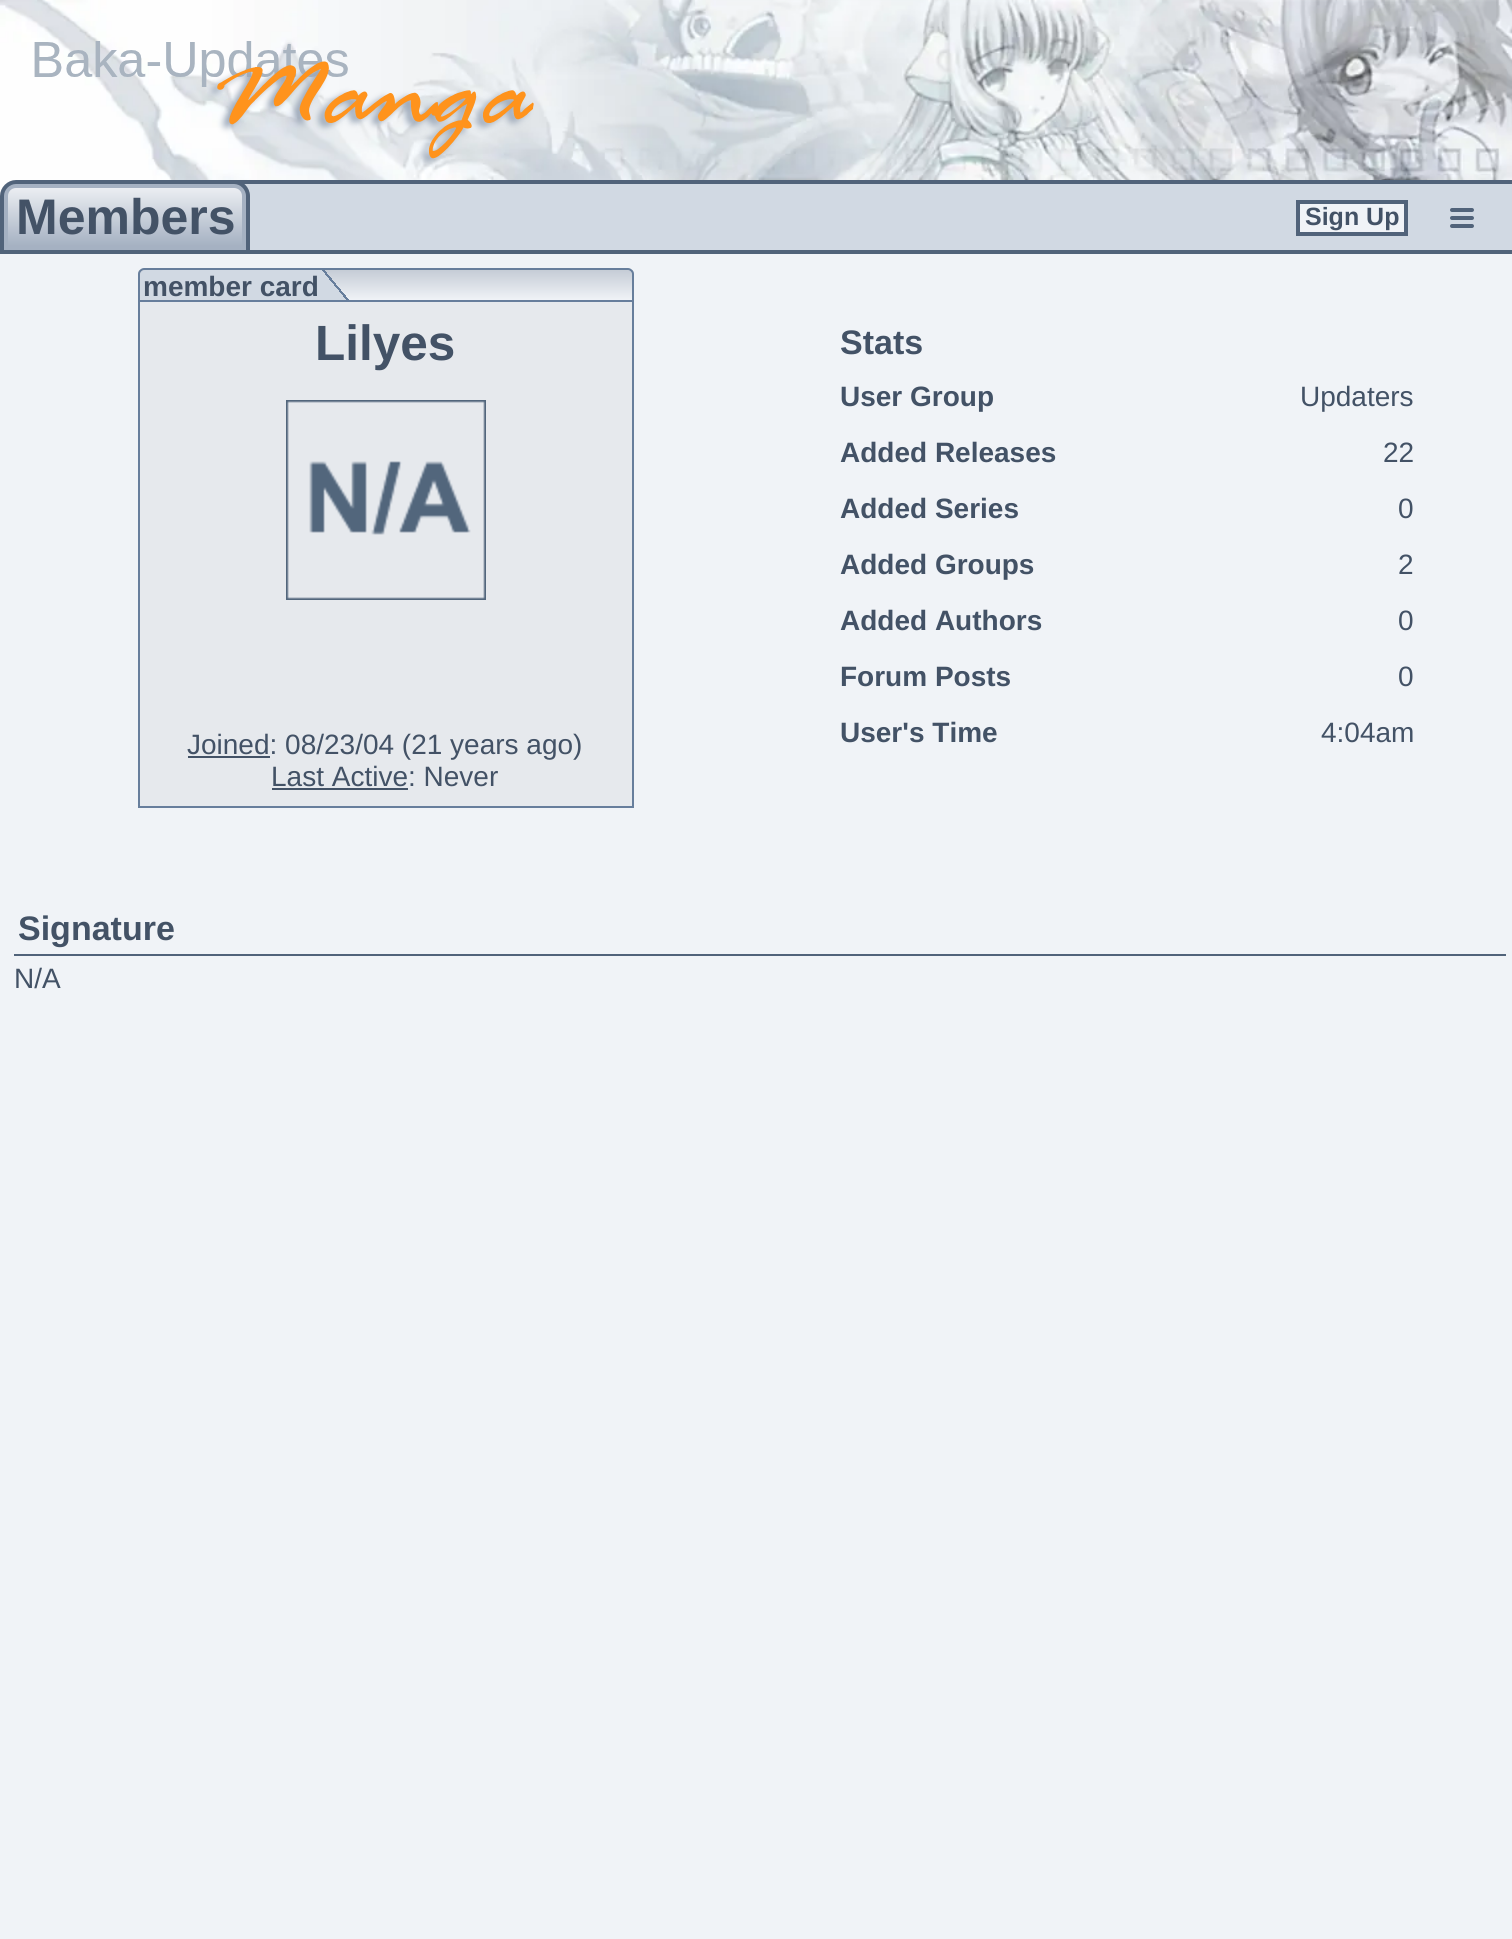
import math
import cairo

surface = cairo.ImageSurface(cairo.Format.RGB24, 1512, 1939)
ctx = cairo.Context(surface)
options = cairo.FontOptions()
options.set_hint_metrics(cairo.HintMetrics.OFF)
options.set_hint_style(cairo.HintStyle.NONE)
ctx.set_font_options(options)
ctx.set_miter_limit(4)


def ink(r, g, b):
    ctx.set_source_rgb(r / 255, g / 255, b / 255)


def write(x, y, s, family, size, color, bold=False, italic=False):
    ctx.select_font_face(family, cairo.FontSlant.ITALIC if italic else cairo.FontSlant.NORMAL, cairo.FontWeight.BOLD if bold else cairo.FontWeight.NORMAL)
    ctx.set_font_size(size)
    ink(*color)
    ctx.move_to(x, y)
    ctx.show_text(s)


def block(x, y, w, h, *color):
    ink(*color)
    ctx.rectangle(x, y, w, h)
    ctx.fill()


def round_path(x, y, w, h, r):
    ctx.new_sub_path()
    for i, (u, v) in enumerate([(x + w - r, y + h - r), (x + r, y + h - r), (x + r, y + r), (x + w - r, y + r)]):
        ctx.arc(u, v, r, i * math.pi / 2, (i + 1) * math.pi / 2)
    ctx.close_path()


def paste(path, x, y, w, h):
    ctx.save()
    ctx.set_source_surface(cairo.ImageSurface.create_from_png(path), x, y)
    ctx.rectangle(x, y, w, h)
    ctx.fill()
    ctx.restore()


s1 = dict(family="Liberation Sans", size=50, color=(67, 82, 102), bold=True)
s2 = dict(family="Liberation Sans", size=25, color=(67, 82, 102), bold=True)
s3 = dict(family="Liberation Sans", size=28, color=(67, 82, 102), bold=True)
s4 = dict(family="Liberation Sans", size=49.5, color=(67, 82, 102), bold=True)
s5 = dict(family="Liberation Sans", size=28, color=(67, 82, 102))
s6 = dict(family="Liberation Sans", size=34, color=(67, 82, 102), bold=True)

ink(240, 243, 247)
ctx.paint()
paste("pic1.png", 0, 0, 1512, 196)
paste("pic2.png", 34, 41, 314, 46)
paste("pic3.png", 207, 61, 327, 106)
block(244, 184, 1268, 66, 209, 217, 227)
block(234, 180, 1278, 4, 81, 99, 122)
ink(165, 177, 194)
ctx.new_path()
ctx.move_to(16, 182)
ctx.line_to(234, 182)
ctx.curve_to(241.5, 182, 248, 188.5, 248, 196)
ctx.line_to(248, 252)
ctx.line_to(2, 252)
ctx.line_to(2, 196)
ctx.curve_to(2, 188.5, 8.5, 182, 16, 182)
ctx.close_path()
ctx.fill_preserve()
ink(81, 99, 122)
ctx.set_line_width(4)
ctx.stroke()
gradient = cairo.LinearGradient(125, 188, 125, 246)
gradient.add_color_stop_rgba(0, 0.922, 0.933, 0.949, 1)
gradient.add_color_stop_rgba(1, 0.647, 0.694, 0.761, 1)
ctx.set_source(gradient)
ctx.new_path()
ctx.move_to(16, 188)
ctx.line_to(234, 188)
ctx.curve_to(238.5, 188, 242, 191.5, 242, 196)
ctx.line_to(242, 246)
ctx.line_to(8, 246)
ctx.line_to(8, 196)
ctx.curve_to(8, 191.5, 11.5, 188, 16, 188)
ctx.close_path()
ctx.fill()
write(16, 234, "Members", **s1)
block(250, 250, 1262, 4, 81, 99, 122)
ink(240, 243, 247)
ctx.rectangle(1298, 202, 108, 32)
ctx.fill_preserve()
ink(81, 99, 122)
ctx.stroke()
write(1305, 225, "Sign Up", **s2)
ink(81, 99, 122)
round_path(1450, 208, 24, 4, 2)
ctx.fill()
round_path(1450, 216, 24, 4, 2)
ctx.fill()
round_path(1450, 224, 24, 4, 2)
ctx.fill()
ctx.save()
ctx.new_path()
ctx.move_to(144, 268)
ctx.line_to(628, 268)
ctx.curve_to(631.5, 268, 634, 270.5, 634, 274)
ctx.line_to(634, 300)
ctx.line_to(138, 300)
ctx.line_to(138, 274)
ctx.curve_to(138, 270.5, 140.5, 268, 144, 268)
ctx.close_path()
ctx.clip()
gradient = cairo.LinearGradient(386, 270, 386, 300)
gradient.add_color_stop_rgba(0, 0.773, 0.8, 0.839, 1)
gradient.add_color_stop_rgba(1, 0.941, 0.953, 0.969, 1)
ctx.set_source(gradient)
ctx.rectangle(138, 270, 496, 30)
ctx.fill()
ctx.restore()
ink(103, 126, 156)
ctx.set_fill_rule(cairo.FillRule.EVEN_ODD)
ctx.new_path()
ctx.move_to(144, 268)
ctx.line_to(628, 268)
ctx.curve_to(631, 268, 634, 271, 634, 274)
ctx.line_to(634, 300)
ctx.line_to(138, 300)
ctx.line_to(138, 274)
ctx.curve_to(138, 271, 141, 268, 144, 268)
ctx.close_path()
ctx.move_to(144, 270)
ctx.line_to(628, 270)
ctx.curve_to(630, 270, 632, 272, 632, 274)
ctx.line_to(632, 300)
ctx.line_to(140, 300)
ctx.line_to(140, 274)
ctx.curve_to(140, 272, 142, 270, 144, 270)
ctx.close_path()
ctx.fill()
ink(209, 217, 227)
ctx.new_path()
ctx.move_to(146, 270)
ctx.line_to(322, 270)
ctx.line_to(322, 300)
ctx.line_to(140, 300)
ctx.line_to(140, 276)
ctx.curve_to(140, 272.5, 142.5, 270, 146, 270)
ctx.close_path()
ctx.fill()
write(143, 296, "member card", **s3)
gradient = cairo.LinearGradient(317, 299, 351, 271)
gradient.add_color_stop_rgba(0.5, 0.82, 0.851, 0.89, 1)
gradient.add_color_stop_rgba(0.5, 0.404, 0.494, 0.612, 1)
gradient.add_color_stop_rgba(0.55, 0.404, 0.494, 0.612, 1)
gradient.add_color_stop_rgba(0.55, 0.404, 0.494, 0.612, 0)
gradient.add_color_stop_rgba(1, 0, 0, 0, 0)
ctx.set_source(gradient)
ctx.rectangle(322, 270, 27, 30)
ctx.fill()
ink(230, 233, 237)
ctx.rectangle(139, 301, 494, 506)
ctx.fill_preserve()
ink(103, 126, 156)
ctx.set_line_width(2)
ctx.stroke()
write(315, 360, "Lilyes", **s4)
paste("pic4.png", 286, 400, 200, 200)
block(188, 756, 82, 2, 67, 82, 102)
write(187, 754, "Joined: 08/23/04 (21 years ago)", **s5)
write(271, 786, "Last Active: Never", **s5)
block(272, 788, 136, 2, 67, 82, 102)
write(840, 354, "Stats", **s6)
write(840, 406, "User Group", **s3)
write(1300, 406, "Updaters", **s5)
write(840, 462, "Added Releases", **s3)
write(1383, 462, "22", **s5)
write(840, 518, "Added Series", **s3)
write(1398, 518, "0", **s5)
write(840, 574, "Added Groups", **s3)
write(1398, 574, "2", **s5)
write(840, 630, "Added Authors", **s3)
write(1398, 630, "0", **s5)
write(840, 686, "Forum Posts", **s3)
write(1398, 686, "0", **s5)
write(840, 742, "User's Time", **s3)
write(1321, 742, "4:04am", **s5)
block(14, 954, 1492, 2, 81, 99, 122)
write(18, 940, "Signature", **s6)
write(14, 988, "N/A", **s5)
surface.write_to_png("screenshot.png")
